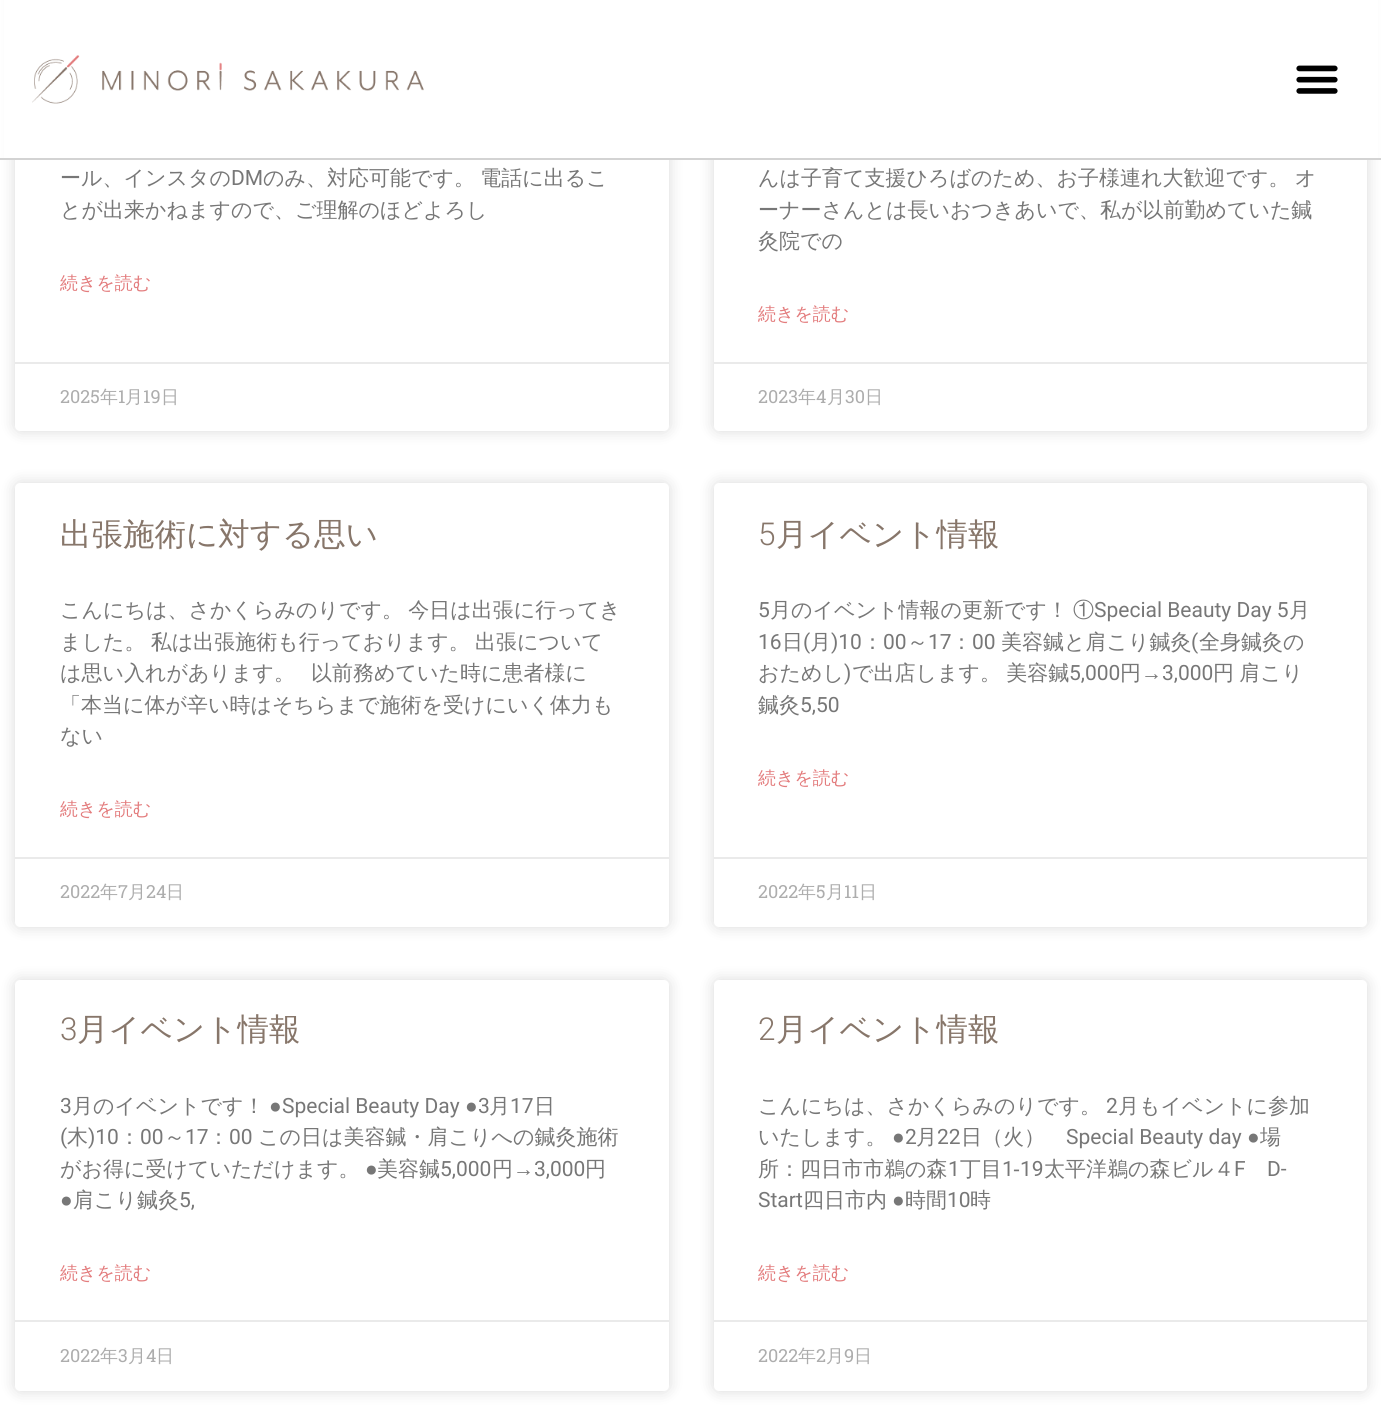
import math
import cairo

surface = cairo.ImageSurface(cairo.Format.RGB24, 1381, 1411)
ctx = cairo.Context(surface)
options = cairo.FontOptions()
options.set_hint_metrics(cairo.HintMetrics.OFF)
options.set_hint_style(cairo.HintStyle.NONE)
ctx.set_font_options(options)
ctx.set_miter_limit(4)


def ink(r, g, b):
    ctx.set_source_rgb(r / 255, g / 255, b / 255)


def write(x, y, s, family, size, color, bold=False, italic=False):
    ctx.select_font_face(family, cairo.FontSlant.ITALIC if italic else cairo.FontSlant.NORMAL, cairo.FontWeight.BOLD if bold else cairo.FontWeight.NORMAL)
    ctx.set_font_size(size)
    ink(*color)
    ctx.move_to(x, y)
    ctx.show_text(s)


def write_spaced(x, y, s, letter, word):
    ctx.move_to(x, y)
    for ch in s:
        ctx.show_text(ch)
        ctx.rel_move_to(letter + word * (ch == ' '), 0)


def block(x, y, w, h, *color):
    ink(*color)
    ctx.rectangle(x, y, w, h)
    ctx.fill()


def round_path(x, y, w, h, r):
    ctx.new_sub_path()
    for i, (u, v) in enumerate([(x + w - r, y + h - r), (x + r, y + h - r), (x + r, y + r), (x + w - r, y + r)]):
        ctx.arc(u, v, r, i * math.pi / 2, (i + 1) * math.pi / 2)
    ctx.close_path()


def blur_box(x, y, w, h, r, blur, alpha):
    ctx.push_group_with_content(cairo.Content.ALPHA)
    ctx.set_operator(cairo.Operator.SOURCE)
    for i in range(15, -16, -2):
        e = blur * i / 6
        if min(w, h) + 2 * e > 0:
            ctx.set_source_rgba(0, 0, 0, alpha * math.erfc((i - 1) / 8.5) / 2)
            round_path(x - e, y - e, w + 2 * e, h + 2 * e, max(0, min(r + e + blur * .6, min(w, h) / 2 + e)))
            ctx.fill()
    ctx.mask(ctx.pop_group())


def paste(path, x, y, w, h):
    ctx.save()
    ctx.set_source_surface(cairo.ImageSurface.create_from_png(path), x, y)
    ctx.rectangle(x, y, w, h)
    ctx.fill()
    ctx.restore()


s1 = dict(family="WenQuanYi Zen Hei Medium", size=21, color=(119, 119, 119))
s2 = dict(family="Roboto", size=21, color=(119, 119, 119))
s3 = dict(family="WenQuanYi Zen Hei Medium", size=18, color=(227, 124, 125))
s4 = dict(family="Roboto Slab", size=18, color=(173, 173, 173))
s5 = dict(family="WenQuanYi Zen Hei Medium", size=18, color=(173, 173, 173))
s6 = dict(family="WenQuanYi Zen Hei Medium", size=31.5, color=(135, 118, 106))
s7 = dict(family="Roboto Light", size=31.5, color=(135, 118, 106))
s8 = dict(family="Liberation Sans", size=21, color=(119, 119, 119))

ink(255, 255, 255)
ctx.paint()
ink(0, 0, 0)
blur_box(15, -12, 654, 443, 5, 7.5, 0.15)
ink(255, 255, 255)
round_path(15, -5, 654, 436, 5)
ctx.fill()
ink(0, 0, 0)
blur_box(714, -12, 653, 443, 5, 7.5, 0.15)
ink(255, 255, 255)
round_path(714, -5, 653, 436, 5)
ctx.fill()
block(4, 0, 1374, 158, 255, 255, 255)
block(0, 158, 1381, 2, 211, 211, 211)
paste("pic1.png", 32, 55, 392, 49)
paste("pic2.png", 1296, 65, 42, 29)
write(60, 185, "ール、インスタの", **s1)
write(231, 185, "DM", **s2)
ctx.select_font_face("WenQuanYi Zen Hei Medium")
write_spaced(263, 185, "のみ、対応可能です。 電話に出るこ", 0, -1)
write(60, 217, "とが出来かねますので、ご理解のほどよろし", **s1)
write(60, 289, "続きを読む", **s3)
block(15, 362, 654, 2, 234, 234, 234)
write(60, 403, "2025", **s4)
write(100, 403, "年", **s5)
write(118, 403, "1", **s4)
write(125, 403, "月", **s5)
write(143, 403, "19", **s4)
write(161, 403, "日", **s5)
ctx.set_font_size(21)
ink(119, 119, 119)
write_spaced(758, 185, "んは子育て支援ひろばのため、お子様連れ大歓迎です。 オ", 0, -1)
write(758, 217, "ーナーさんとは長いおつきあいで、私が以前勤めていた鍼", **s1)
write(758, 248, "灸院での", **s1)
write(758, 320, "続きを読む", **s3)
block(714, 362, 653, 2, 234, 234, 234)
write(758, 403, "2023", **s4)
write(798, 403, "年", **s5)
write(816, 403, "4", **s4)
write(827, 403, "月", **s5)
write(845, 403, "30", **s4)
write(865, 403, "日", **s5)
ink(0, 0, 0)
blur_box(15, 483, 654, 444, 5, 7.5, 0.15)
ink(255, 255, 255)
round_path(15, 483, 654, 444, 5)
ctx.fill()
write(60, 545, "出張施術に対する思い", **s6)
ctx.set_font_size(21)
ink(119, 119, 119)
write_spaced(60, 617, "こんにちは、さかくらみのりです。 今日は出張に行ってき", 0, -1)
write_spaced(60, 649, "ました。 私は出張施術も行っております。 出張について", 0, -1)
write(60, 680, "は思い入れがあります。", **s1)
write(311, 680, "以前務めていた時に患者様に", **s1)
write(60, 712, "「本当に体が辛い時はそちらまで施術を受けにいく体力も", **s1)
write(60, 743, "ない", **s1)
write(60, 815, "続きを読む", **s3)
block(15, 857, 654, 2, 234, 234, 234)
write(60, 898, "2022", **s4)
write(100, 898, "年", **s5)
write(118, 898, "7", **s4)
write(128, 898, "月", **s5)
write(146, 898, "24", **s4)
write(166, 898, "日", **s5)
ink(0, 0, 0)
blur_box(714, 483, 653, 444, 5, 7.5, 0.15)
ink(255, 255, 255)
round_path(714, 483, 653, 444, 5)
ctx.fill()
write(758, 545, "5", **s7)
write(776, 545, "月イベント情報", **s6)
write(758, 617, "5", **s2)
write(770, 617, "月のイベント情報の更新です！", **s1)
write(1073, 617, "①", **s1)
write(1094, 617, "Special Beauty Day 5", **s2)
write(1289, 617, "月", **s1)
write(758, 649, "16", **s2)
write(782, 649, "日", **s1)
write(803, 649, "(", **s2)
write(810, 649, "月", **s1)
write(831, 649, ")10", **s2)
write(862, 649, "：", **s1)
write(883, 649, "00", **s2)
write(907, 649, "～", **s1)
write(928, 649, "17", **s2)
write(951, 649, "：", **s1)
write(972, 649, "00", **s2)
write(1001, 649, "美容鍼と肩こり鍼灸", **s1)
write(1191, 649, "(", **s2)
write(1199, 649, "全身鍼灸の", **s1)
write(758, 680, "おためし", **s1)
write(844, 680, ")", **s2)
ctx.select_font_face("WenQuanYi Zen Hei Medium")
write_spaced(852, 680, "で出店します。 美容鍼", 0, -1)
write(1069, 680, "5,000", **s2)
write(1120, 680, "円", **s1)
write(1141, 680, "→", **s8)
write(1162, 680, "3,000", **s2)
ctx.select_font_face("WenQuanYi Zen Hei Medium")
write_spaced(1213, 680, "円 肩こり", 0, -1)
write(758, 712, "鍼灸", **s1)
write(800, 712, "5,50", **s2)
write(758, 784, "続きを読む", **s3)
block(714, 857, 653, 2, 234, 234, 234)
write(758, 898, "2022", **s4)
write(798, 898, "年", **s5)
write(816, 898, "5", **s4)
write(826, 898, "月", **s5)
write(844, 898, "11", **s4)
write(859, 898, "日", **s5)
ink(0, 0, 0)
blur_box(15, 980, 654, 411, 5, 7.5, 0.15)
ink(255, 255, 255)
round_path(15, 980, 654, 411, 5)
ctx.fill()
write(60, 1040, "3", **s7)
write(77, 1040, "月イベント情報", **s6)
write(60, 1113, "3", **s2)
write(72, 1113, "月のイベントです！", **s1)
write(269, 1113, "●", **s8)
write(282, 1113, "Special Beauty Day", **s2)
write(465, 1113, "●", **s8)
write(478, 1113, "3", **s2)
write(489, 1113, "月", **s1)
write(510, 1113, "17", **s2)
write(534, 1113, "日", **s1)
write(60, 1144, "(", **s2)
write(67, 1144, "木", **s1)
write(88, 1144, ")10", **s2)
write(119, 1144, "：", **s1)
write(140, 1144, "00", **s2)
write(164, 1144, "～", **s1)
write(185, 1144, "17", **s2)
write(208, 1144, "：", **s1)
write(229, 1144, "00", **s2)
write(258, 1144, "この日は美容鍼・肩こりへの鍼灸施術", **s1)
write(60, 1176, "がお得に受けていただけます。", **s1)
write(365, 1176, "●", **s8)
write(377, 1176, "美容鍼", **s1)
write(440, 1176, "5,000", **s2)
write(492, 1176, "円", **s1)
write(513, 1176, "→", **s8)
write(534, 1176, "3,000", **s2)
write(585, 1176, "円", **s1)
write(60, 1207, "●", **s8)
write(73, 1207, "肩こり鍼灸", **s1)
write(179, 1207, "5,", **s2)
write(60, 1279, "続きを読む", **s3)
block(15, 1320, 654, 2, 234, 234, 234)
write(60, 1362, "2022", **s4)
write(100, 1362, "年", **s5)
write(118, 1362, "3", **s4)
write(128, 1362, "月", **s5)
write(146, 1362, "4", **s4)
write(156, 1362, "日", **s5)
ink(0, 0, 0)
blur_box(714, 980, 653, 411, 5, 7.5, 0.15)
ink(255, 255, 255)
round_path(714, 980, 653, 411, 5)
ctx.fill()
write(758, 1040, "2", **s7)
write(776, 1040, "月イベント情報", **s6)
write(758, 1113, "こんにちは、さかくらみのりです。", **s1)
write(1106, 1113, "2", **s2)
write(1118, 1113, "月もイベントに参加", **s1)
write(758, 1144, "いたします。", **s1)
write(892, 1144, "●", **s8)
write(905, 1144, "2", **s2)
write(916, 1144, "月", **s1)
write(937, 1144, "22", **s2)
write(961, 1144, "日（火）", **s1)
write(1066, 1144, "Special Beauty day", **s2)
write(1247, 1144, "●", **s8)
write(1260, 1144, "場", **s1)
write(758, 1176, "所：四日市市鵜の森", **s1)
write(948, 1176, "1", **s2)
write(960, 1176, "丁目", **s1)
write(1002, 1176, "1", **s2)
write(1013, 1176, "‐", **s8)
write(1020, 1176, "19", **s2)
write(1044, 1176, "太平洋鵜の森ビル４", **s1)
write(1234, 1176, "F", **s2)
write(1267, 1176, "D-", **s2)
write(758, 1207, "Start", **s2)
write(803, 1207, "四日市内", **s1)
write(892, 1207, "●", **s8)
write(905, 1207, "時間", **s1)
write(947, 1207, "10", **s2)
write(970, 1207, "時", **s1)
write(758, 1279, "続きを読む", **s3)
block(714, 1320, 653, 2, 234, 234, 234)
write(758, 1362, "2022", **s4)
write(798, 1362, "年", **s5)
write(816, 1362, "2", **s4)
write(826, 1362, "月", **s5)
write(844, 1362, "9", **s4)
write(854, 1362, "日", **s5)
surface.write_to_png("screenshot.png")
